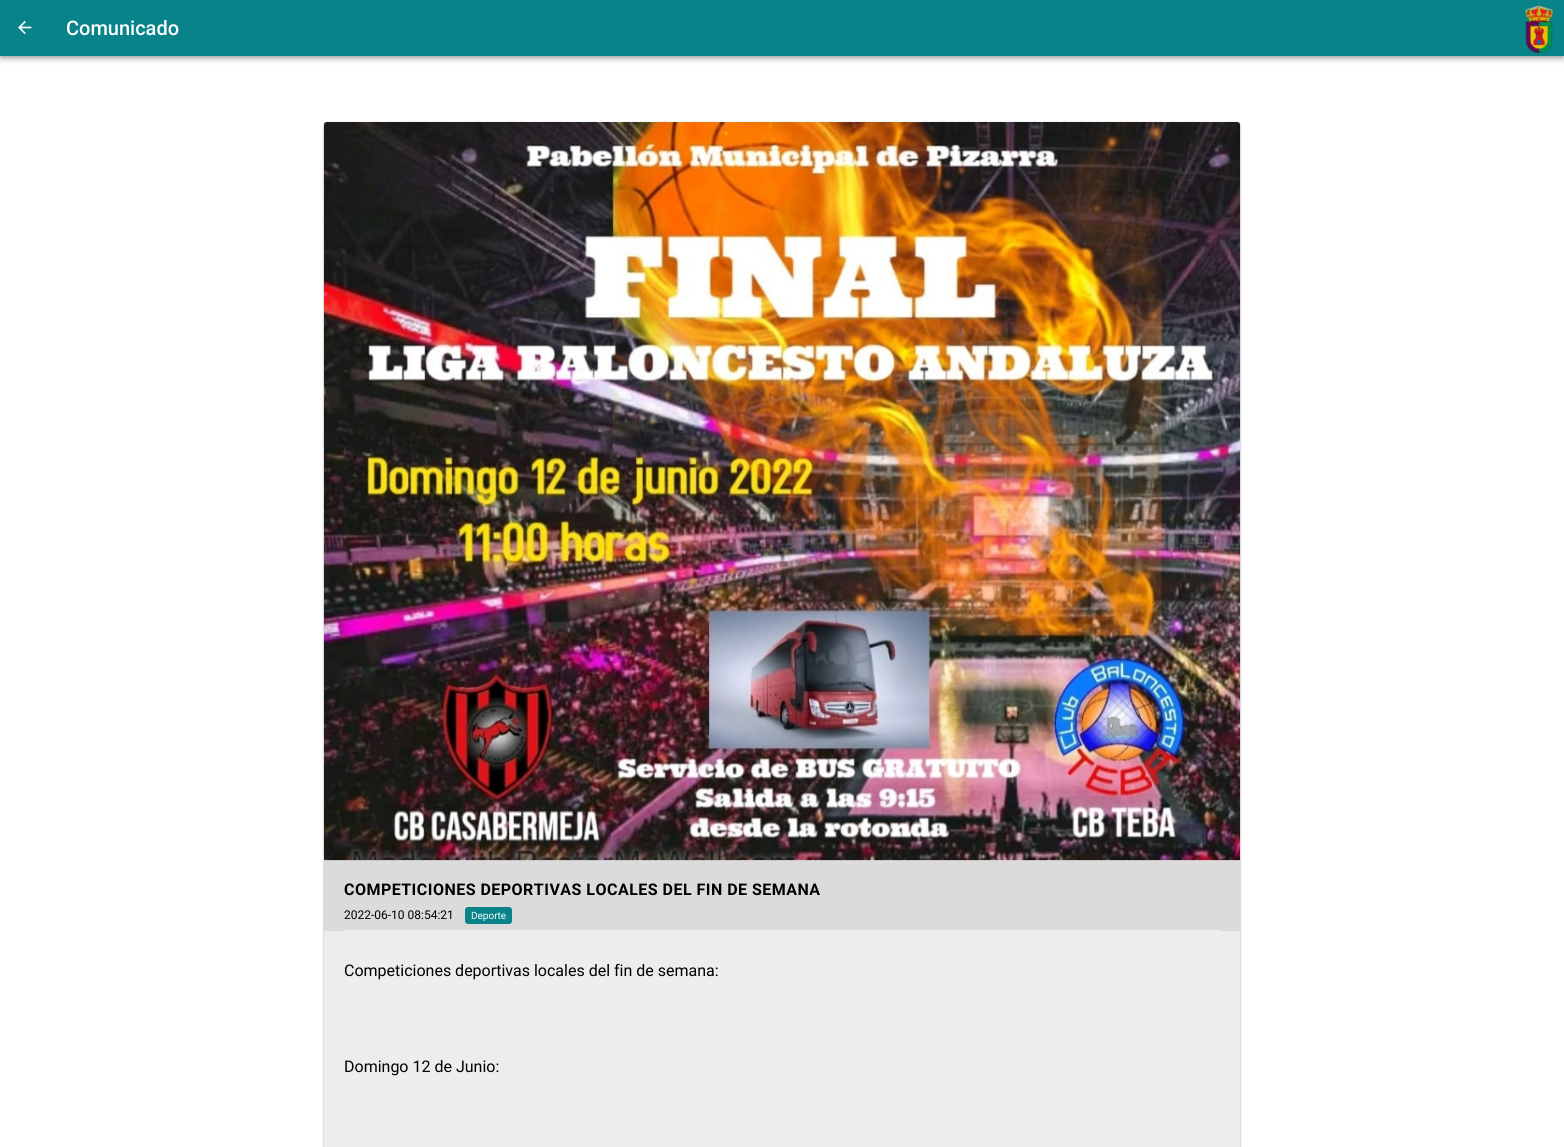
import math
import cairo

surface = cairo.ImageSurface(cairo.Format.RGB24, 1564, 1147)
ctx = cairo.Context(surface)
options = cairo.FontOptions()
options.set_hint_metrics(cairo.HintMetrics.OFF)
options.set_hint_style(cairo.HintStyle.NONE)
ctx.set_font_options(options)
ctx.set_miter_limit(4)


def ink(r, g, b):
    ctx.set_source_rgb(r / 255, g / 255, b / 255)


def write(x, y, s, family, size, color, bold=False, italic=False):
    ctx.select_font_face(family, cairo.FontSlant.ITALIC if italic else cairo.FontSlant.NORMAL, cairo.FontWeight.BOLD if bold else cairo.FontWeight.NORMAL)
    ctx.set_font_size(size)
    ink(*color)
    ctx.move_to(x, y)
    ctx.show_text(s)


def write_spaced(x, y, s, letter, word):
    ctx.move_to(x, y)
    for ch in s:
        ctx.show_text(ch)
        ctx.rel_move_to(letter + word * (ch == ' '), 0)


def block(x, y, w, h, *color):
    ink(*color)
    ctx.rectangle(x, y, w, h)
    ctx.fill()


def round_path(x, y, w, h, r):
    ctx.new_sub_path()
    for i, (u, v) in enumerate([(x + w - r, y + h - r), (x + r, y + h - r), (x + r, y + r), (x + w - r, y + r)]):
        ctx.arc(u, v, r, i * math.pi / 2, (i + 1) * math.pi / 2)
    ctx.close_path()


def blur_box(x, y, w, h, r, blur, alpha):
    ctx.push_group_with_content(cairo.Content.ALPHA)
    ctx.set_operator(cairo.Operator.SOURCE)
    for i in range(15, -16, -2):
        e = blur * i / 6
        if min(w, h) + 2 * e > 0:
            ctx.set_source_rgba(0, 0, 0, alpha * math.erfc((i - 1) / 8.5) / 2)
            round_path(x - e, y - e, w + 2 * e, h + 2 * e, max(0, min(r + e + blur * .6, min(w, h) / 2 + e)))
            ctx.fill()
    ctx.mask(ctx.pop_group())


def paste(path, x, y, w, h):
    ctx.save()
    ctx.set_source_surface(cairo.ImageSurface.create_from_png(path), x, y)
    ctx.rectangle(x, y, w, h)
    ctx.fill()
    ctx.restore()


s1 = dict(family="Roboto Medium", size=20, color=(255, 255, 255))
s2 = dict(family="Roboto", size=12, color=(0, 0, 0))
s3 = dict(family="Roboto", size=10, color=(255, 255, 255))
s4 = dict(family="Roboto", size=16, color=(0, 0, 0))

ink(255, 255, 255)
ctx.paint()
ink(0, 0, 0)
blur_box(0, 1, 1564, 56, 0, 5, 0.12)
blur_box(0, 4, 1564, 56, 0, 2.5, 0.14)
blur_box(1, 3, 1562, 54, 0, 2, 0.2)
block(0, 0, 1564, 56, 8, 131, 137)
paste("pic1.png", 18, 20, 14, 15)
write(66, 35, "Comunicado", **s1)
paste("pic2.png", 1525, 3, 29, 50)
ink(0, 0, 0)
blur_box(324, 123, 916, 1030, 3, 1, 0.24)
blur_box(324, 123, 916, 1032, 3, 1.5, 0.12)
block(324, 860, 916, 71, 219, 219, 219)
paste("pic3.png", 324, 122, 916, 739)
block(324, 931, 916, 216, 237, 237, 237)
ctx.select_font_face("Roboto", cairo.FontSlant.NORMAL, cairo.FontWeight.BOLD)
ctx.set_font_size(16)
ink(0, 0, 0)
write_spaced(344, 895, "COMPETICIONES DEPORTIVAS LOCALES DEL FIN DE SEMANA", 0.48, 0)
write(344, 919, "2022-06-10 08:54:21", **s2)
ink(8, 131, 137)
round_path(465, 907, 47, 17, 3)
ctx.fill()
write(471, 919, "Deporte", **s3)
block(344, 930, 876, 1, 238, 238, 238)
write(344, 976, "Competiciones deportivas locales del fin de semana:", **s4)
write(344, 1072, "Domingo 12 de Junio:", **s4)
surface.write_to_png("screenshot.png")
